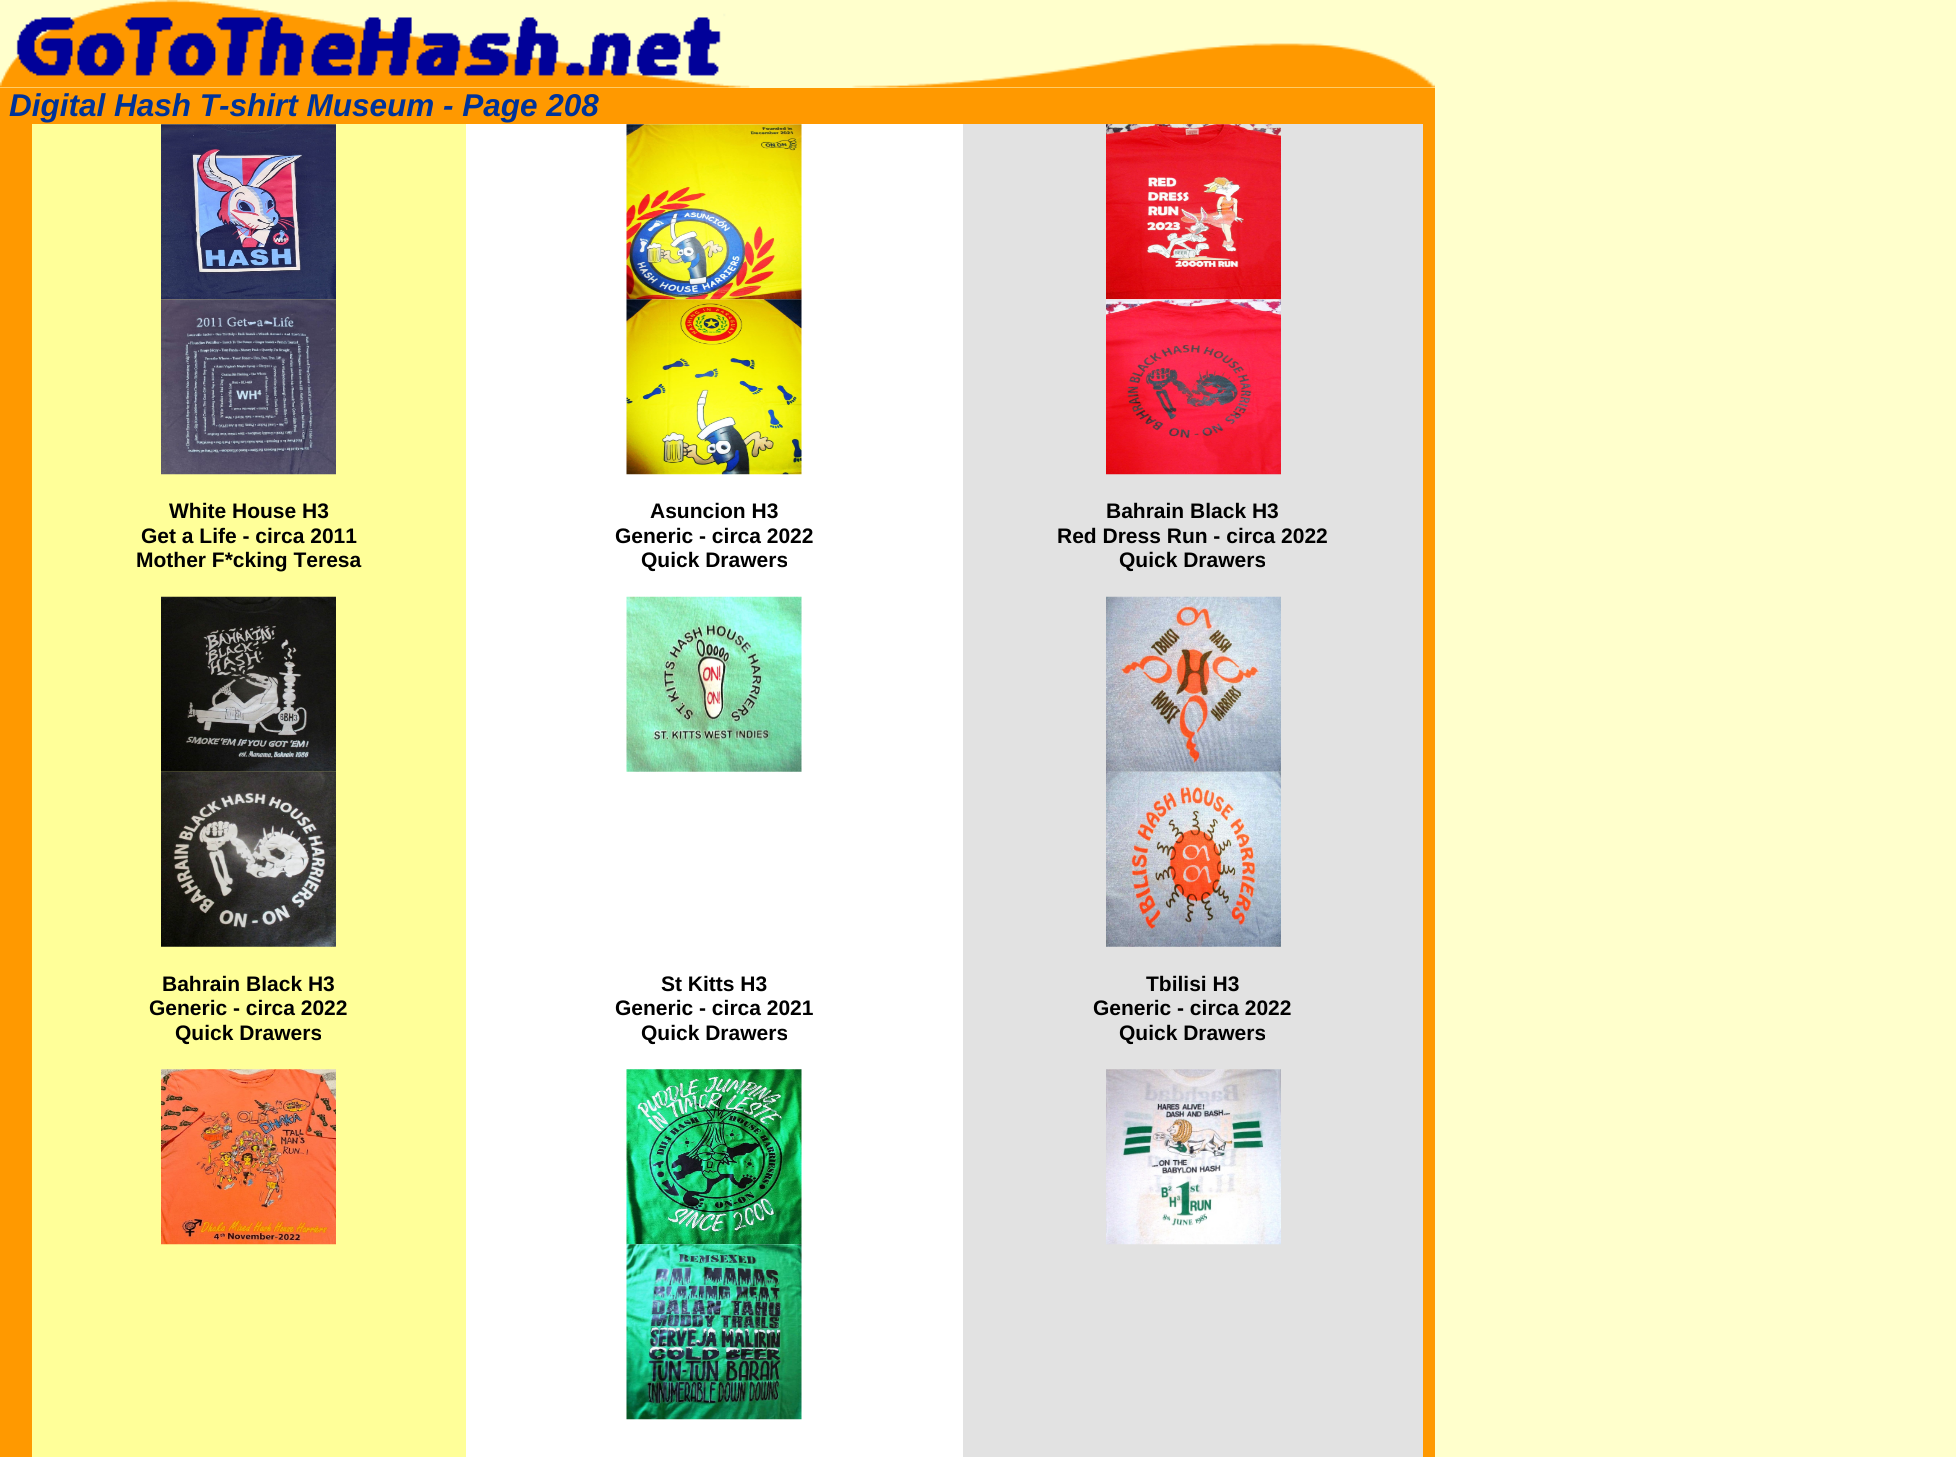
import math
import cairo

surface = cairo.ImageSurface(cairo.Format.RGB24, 1956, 1457)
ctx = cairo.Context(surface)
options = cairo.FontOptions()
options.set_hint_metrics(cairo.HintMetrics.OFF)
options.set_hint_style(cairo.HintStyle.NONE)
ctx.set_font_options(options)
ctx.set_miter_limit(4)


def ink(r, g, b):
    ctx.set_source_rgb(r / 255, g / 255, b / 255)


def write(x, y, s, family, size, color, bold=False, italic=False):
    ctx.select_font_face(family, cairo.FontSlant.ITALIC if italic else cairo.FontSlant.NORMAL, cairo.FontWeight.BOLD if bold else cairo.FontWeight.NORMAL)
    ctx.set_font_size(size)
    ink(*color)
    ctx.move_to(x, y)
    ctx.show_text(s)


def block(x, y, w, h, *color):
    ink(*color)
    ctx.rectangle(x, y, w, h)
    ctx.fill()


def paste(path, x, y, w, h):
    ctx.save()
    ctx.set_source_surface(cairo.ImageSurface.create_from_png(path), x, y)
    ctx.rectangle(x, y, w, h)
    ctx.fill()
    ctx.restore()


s1 = dict(family="Liberation Sans", size=31.5, color=(0, 51, 153), bold=True, italic=True)
s2 = dict(family="Liberation Sans", size=21, color=(0, 0, 0), bold=True)

ink(255, 255, 204)
ctx.paint()
paste("pic1.png", 0, 0, 750, 88)
paste("pic2.png", 852, 43, 583, 45)
block(0, 88, 1435, 1369, 255, 153, 0)
write(9, 116, "Digital Hash T-shirt Museum - Page 208", **s1)
block(32, 124, 434, 1333, 255, 255, 153)
paste("pic3.png", 161, 124, 175, 176)
paste("pic4.png", 161, 299, 175, 176)
write(169, 518, "White House H3", **s2)
write(141, 543, "Get a Life - circa 2011", **s2)
write(136, 567, "Mother F*cking Teresa", **s2)
block(466, 124, 497, 1333, 255, 255, 255)
paste("pic5.png", 626, 124, 176, 176)
paste("pic6.png", 626, 299, 176, 176)
write(650, 518, "Asuncion H3", **s2)
write(615, 543, "Generic - circa 2022", **s2)
write(641, 567, "Quick Drawers", **s2)
block(963, 124, 460, 1333, 226, 226, 226)
paste("pic7.png", 1106, 124, 175, 176)
paste("pic8.png", 1106, 299, 175, 176)
write(1106, 518, "Bahrain Black H3", **s2)
write(1057, 543, "Red Dress Run - circa 2022", **s2)
write(1119, 567, "Quick Drawers", **s2)
paste("pic9.png", 161, 596, 175, 176)
paste("pic10.png", 161, 771, 175, 176)
write(162, 991, "Bahrain Black H3", **s2)
write(149, 1015, "Generic - circa 2022", **s2)
write(175, 1040, "Quick Drawers", **s2)
paste("pic11.png", 626, 596, 176, 176)
write(661, 991, "St Kitts H3", **s2)
write(615, 1015, "Generic - circa 2021", **s2)
write(641, 1040, "Quick Drawers", **s2)
paste("pic12.png", 1106, 596, 175, 176)
paste("pic13.png", 1106, 771, 175, 176)
write(1146, 991, "Tbilisi H3", **s2)
write(1093, 1015, "Generic - circa 2022", **s2)
write(1119, 1040, "Quick Drawers", **s2)
paste("pic14.png", 161, 1069, 175, 176)
paste("pic15.png", 626, 1069, 176, 176)
paste("pic16.png", 626, 1244, 176, 176)
paste("pic17.png", 1106, 1069, 175, 176)
surface.write_to_png("screenshot.png")
